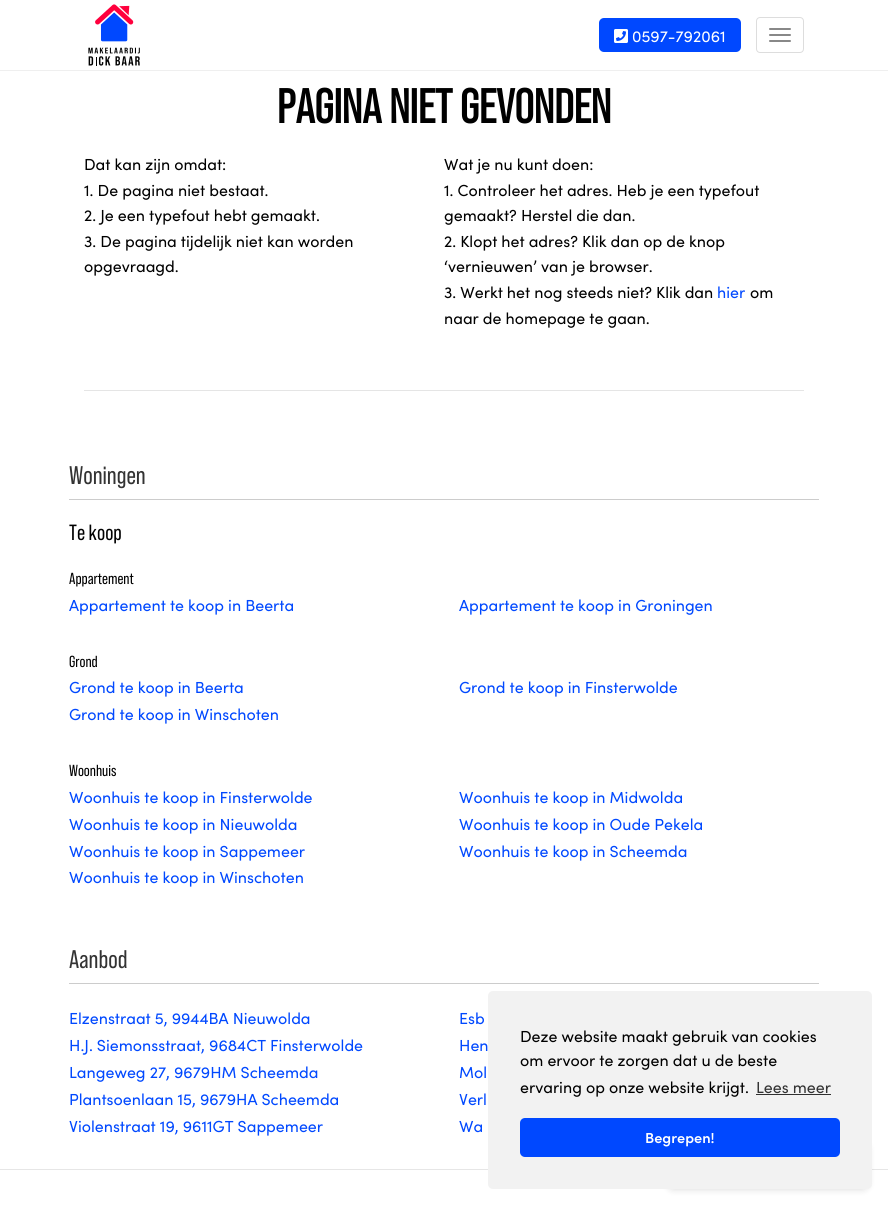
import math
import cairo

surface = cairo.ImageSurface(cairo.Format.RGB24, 888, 1205)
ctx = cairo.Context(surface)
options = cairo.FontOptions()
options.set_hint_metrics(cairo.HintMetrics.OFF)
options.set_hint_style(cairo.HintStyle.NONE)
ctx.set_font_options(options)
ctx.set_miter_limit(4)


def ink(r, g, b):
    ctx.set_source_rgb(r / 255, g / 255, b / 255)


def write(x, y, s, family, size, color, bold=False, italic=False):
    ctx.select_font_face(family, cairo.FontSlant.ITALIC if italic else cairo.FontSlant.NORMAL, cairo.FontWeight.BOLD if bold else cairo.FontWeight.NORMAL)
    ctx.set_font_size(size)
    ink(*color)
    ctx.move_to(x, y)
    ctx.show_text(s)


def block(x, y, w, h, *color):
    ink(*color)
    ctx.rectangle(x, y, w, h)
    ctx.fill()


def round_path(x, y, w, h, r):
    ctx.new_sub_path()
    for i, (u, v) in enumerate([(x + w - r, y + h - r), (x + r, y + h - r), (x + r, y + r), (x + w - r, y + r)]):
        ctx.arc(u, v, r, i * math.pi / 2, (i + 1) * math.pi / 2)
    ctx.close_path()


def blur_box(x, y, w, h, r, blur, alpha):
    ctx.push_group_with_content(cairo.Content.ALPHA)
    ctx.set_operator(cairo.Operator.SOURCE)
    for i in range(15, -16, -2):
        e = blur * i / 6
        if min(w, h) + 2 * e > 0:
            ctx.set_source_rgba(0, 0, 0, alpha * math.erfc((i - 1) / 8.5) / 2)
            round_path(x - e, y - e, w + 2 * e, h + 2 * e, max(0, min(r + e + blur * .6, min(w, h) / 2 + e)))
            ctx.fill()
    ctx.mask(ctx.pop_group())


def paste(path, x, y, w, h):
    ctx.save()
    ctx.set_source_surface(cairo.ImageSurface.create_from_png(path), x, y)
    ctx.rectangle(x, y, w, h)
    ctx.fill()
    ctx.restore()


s1 = dict(family="Sofia", size=16, color=(255, 255, 255))
s2 = dict(family="Bebas Neue", size=48, color=(0, 0, 0), bold=True)
s3 = dict(family="Sofia", size=16, color=(0, 0, 0))
s4 = dict(family="Sofia", size=16, color=(0, 72, 255))
s5 = dict(family="Bebas Neue", size=25.5, color=(51, 51, 51))
s6 = dict(family="Bebas Neue", size=22, color=(0, 0, 0))
s7 = dict(family="Bebas Neue", size=16, color=(0, 0, 0))
s8 = dict(family="Sofia", size=16, color=(51, 51, 51))
s9 = dict(family="Sofia SemiBold", size=14.5, color=(255, 255, 255))

ink(255, 255, 255)
ctx.paint()
block(0, 70, 888, 1, 239, 239, 239)
paste("pic1.png", 88, 4, 52, 62)
ink(0, 72, 255)
round_path(599, 18, 142, 34, 5)
ctx.fill()
paste("pic2.png", 614, 29, 14, 14)
write(632, 42, "0597-792061", **s1)
round_path(756.5, 17.5, 47, 35, 3.5)
ink(221, 221, 221)
ctx.set_line_width(1)
ctx.stroke()
ink(136, 136, 136)
round_path(769, 28, 22, 2, 1)
ctx.fill()
round_path(769, 34, 22, 2, 1)
ctx.fill()
round_path(769, 40, 22, 2, 1)
ctx.fill()
block(84, 390, 720, 1, 229, 229, 229)
write(277, 123, "PAGINA NIET GEVONDEN", **s2)
write(84, 170, "Dat kan zijn omdat:", **s3)
write(84, 196, "1. De pagina niet bestaat.", **s3)
write(84, 221, "2. Je een typefout hebt gemaakt.", **s3)
write(84, 247, "3. De pagina tijdelijk niet kan worden", **s3)
write(84, 272, "opgevraagd.", **s3)
write(444, 170, "Wat je nu kunt doen:", **s3)
write(444, 196, "1. Controleer het adres. Heb je een typefout", **s3)
write(444, 221, "gemaakt? Herstel die dan.", **s3)
write(444, 247, "2. Klopt het adres? Klik dan op de knop", **s3)
write(444, 272, "‘vernieuwen’ van je browser.", **s3)
write(444, 298, "3. Werkt het nog steeds niet? Klik dan", **s3)
write(717, 298, "hier", **s4)
write(750, 298, "om", **s3)
write(444, 324, "naar de homepage te gaan.", **s3)
block(69, 499, 750, 1, 204, 204, 204)
write(69, 484, "Woningen", **s5)
write(69, 540, "Te koop", **s6)
write(69, 584, "Appartement", **s7)
write(69, 611, "Appartement te koop in Beerta", **s4)
write(459, 611, "Appartement te koop in Groningen", **s4)
write(69, 667, "Grond", **s7)
write(69, 693, "Grond te koop in Beerta", **s4)
write(459, 693, "Grond te koop in Finsterwolde", **s4)
write(69, 720, "Grond te koop in Winschoten", **s4)
write(69, 776, "Woonhuis", **s7)
write(69, 803, "Woonhuis te koop in Finsterwolde", **s4)
write(459, 803, "Woonhuis te koop in Midwolda", **s4)
write(69, 830, "Woonhuis te koop in Nieuwolda", **s4)
write(459, 830, "Woonhuis te koop in Oude Pekela", **s4)
write(69, 857, "Woonhuis te koop in Sappemeer", **s4)
write(459, 857, "Woonhuis te koop in Scheemda", **s4)
write(69, 883, "Woonhuis te koop in Winschoten", **s4)
block(69, 983, 750, 1, 204, 204, 204)
write(69, 968, "Aanbod", **s5)
write(69, 1024, "Elzenstraat 5, 9944BA Nieuwolda", **s4)
write(459, 1024, "Esb", **s4)
write(69, 1051, "H.J. Siemonsstraat, 9684CT Finsterwolde", **s4)
write(459, 1051, "Hen", **s4)
write(69, 1078, "Langeweg 27, 9679HM Scheemda", **s4)
write(459, 1078, "Mol", **s4)
write(69, 1105, "Plantsoenlaan 15, 9679HA Scheemda", **s4)
write(459, 1105, "Verl", **s4)
write(69, 1132, "Violenstraat 19, 9611GT Sappemeer", **s4)
write(459, 1132, "Wa", **s4)
block(0, 1169, 888, 1, 230, 230, 230)
ink(0, 0, 0)
blur_box(668, 1144, 200, 45, 5, 4, 0.15)
ink(242, 242, 242)
round_path(488, 991, 384, 198, 5)
ctx.fill()
write(520, 1042, "Deze website maakt gebruik van cookies", **s3)
write(520, 1066, "om ervoor te zorgen dat u de beste", **s3)
write(520, 1093, "ervaring op onze website krijgt.", **s3)
write(756, 1093, "Lees meer", **s8)
block(756, 1094, 75, 1, 48, 48, 48)
ink(0, 72, 255)
round_path(520, 1118, 320, 39, 5)
ctx.fill()
write(645, 1143, "Begrepen!", **s9)
surface.write_to_png("screenshot.png")
